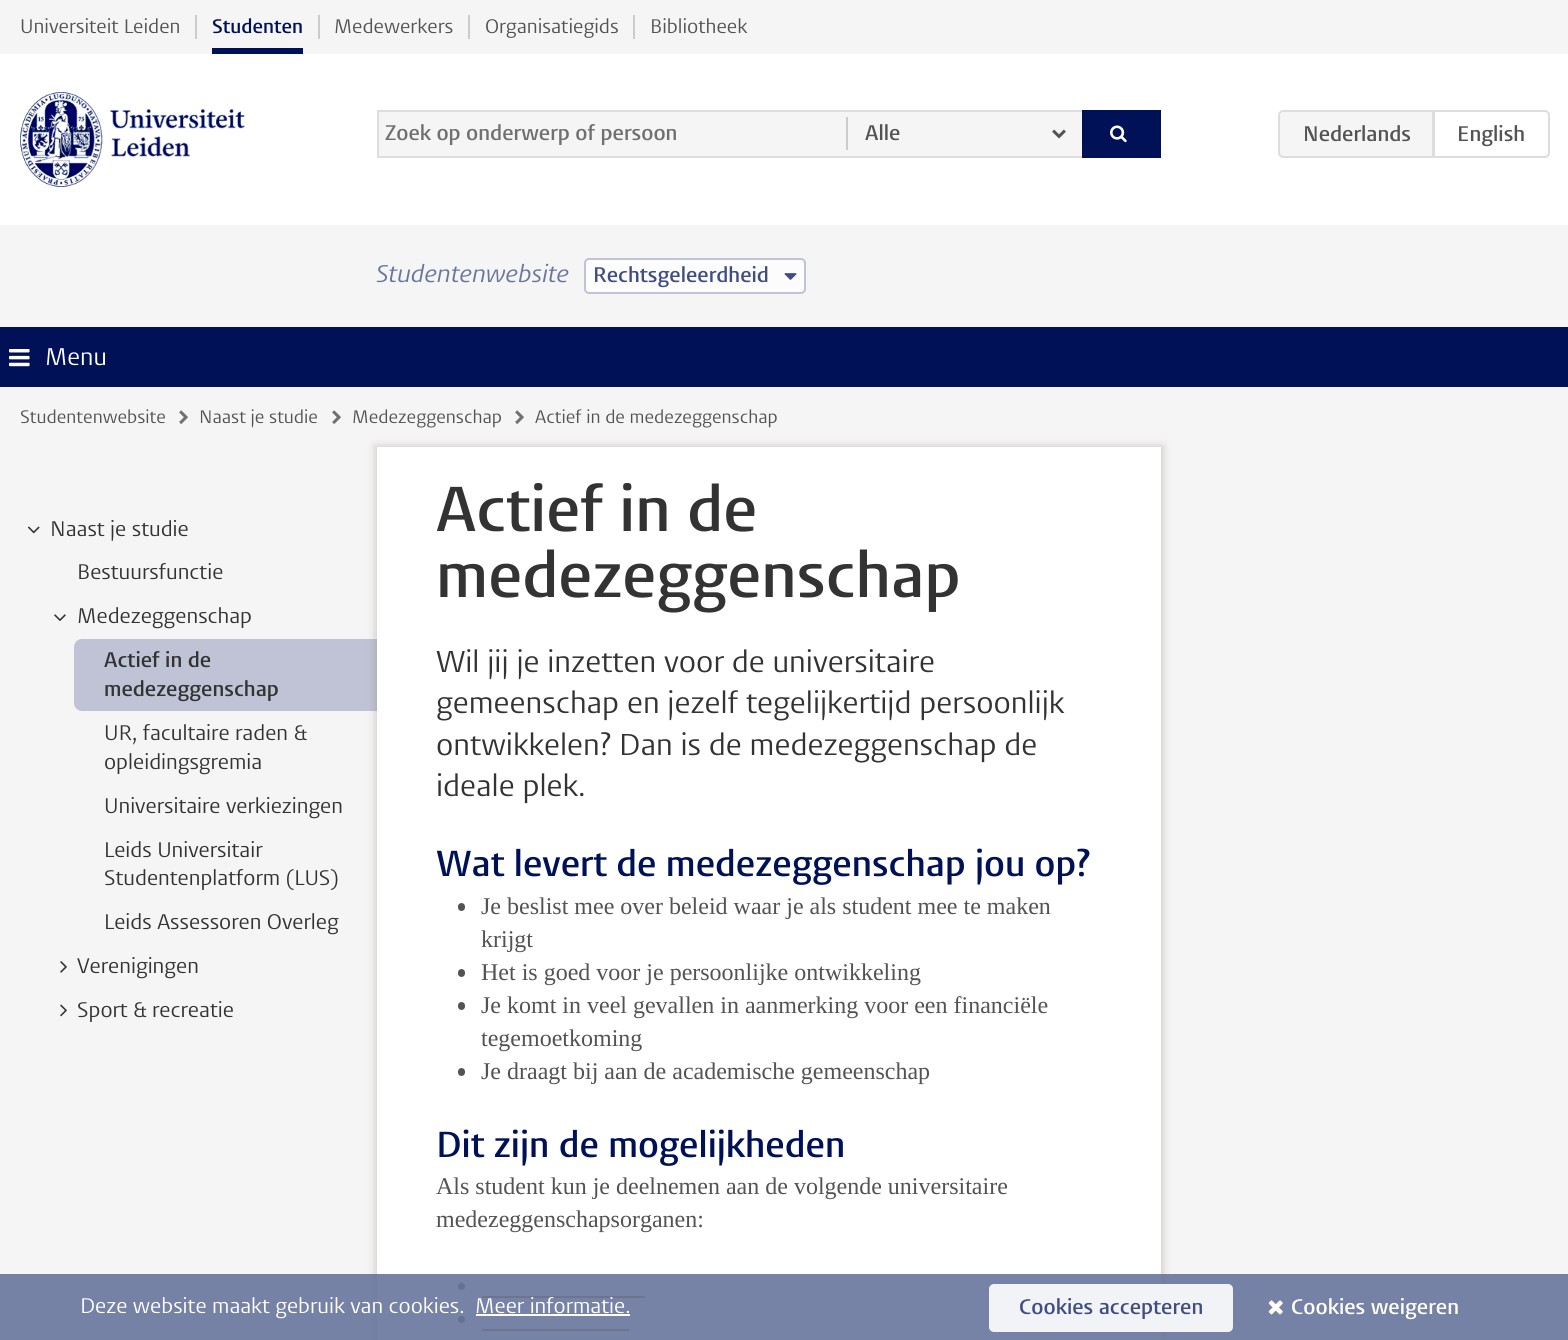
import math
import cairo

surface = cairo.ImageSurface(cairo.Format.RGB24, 1568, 1340)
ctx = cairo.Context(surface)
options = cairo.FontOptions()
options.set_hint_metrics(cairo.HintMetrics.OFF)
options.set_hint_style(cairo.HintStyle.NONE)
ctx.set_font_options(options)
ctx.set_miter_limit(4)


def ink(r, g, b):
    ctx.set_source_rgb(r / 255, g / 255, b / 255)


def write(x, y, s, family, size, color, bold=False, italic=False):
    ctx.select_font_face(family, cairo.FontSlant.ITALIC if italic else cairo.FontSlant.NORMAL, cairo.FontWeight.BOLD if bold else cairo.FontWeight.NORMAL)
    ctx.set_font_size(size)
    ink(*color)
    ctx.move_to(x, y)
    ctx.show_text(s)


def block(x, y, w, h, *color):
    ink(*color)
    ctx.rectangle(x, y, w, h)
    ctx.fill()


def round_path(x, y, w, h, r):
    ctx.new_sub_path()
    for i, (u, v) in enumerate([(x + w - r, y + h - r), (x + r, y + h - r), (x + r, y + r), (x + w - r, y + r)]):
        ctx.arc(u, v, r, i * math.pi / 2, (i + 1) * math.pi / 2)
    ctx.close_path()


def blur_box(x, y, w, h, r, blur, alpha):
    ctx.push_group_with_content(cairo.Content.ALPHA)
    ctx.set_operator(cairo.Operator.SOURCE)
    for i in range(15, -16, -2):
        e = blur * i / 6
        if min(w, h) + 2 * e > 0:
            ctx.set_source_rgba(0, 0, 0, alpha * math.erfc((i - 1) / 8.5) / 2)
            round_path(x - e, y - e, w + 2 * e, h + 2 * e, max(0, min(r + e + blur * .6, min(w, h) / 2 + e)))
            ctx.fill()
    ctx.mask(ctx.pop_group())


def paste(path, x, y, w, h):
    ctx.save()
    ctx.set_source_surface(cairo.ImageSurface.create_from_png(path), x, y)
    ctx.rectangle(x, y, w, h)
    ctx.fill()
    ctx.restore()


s1 = dict(family="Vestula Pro", size=19.5, color=(83, 83, 83))
s2 = dict(family="Vestula Pro SemiBold", size=19.5, color=(0, 17, 88))
s3 = dict(family="Vestula Pro SemiBold", size=21, color=(112, 112, 112))
s4 = dict(family="Vestula Pro SemiBold", size=21, color=(83, 83, 83))
s5 = dict(family="Vestula Pro", size=24, color=(104, 118, 156), italic=True)
s6 = dict(family="Vestula Pro SemiBold", size=21, color=(64, 77, 130))
s7 = dict(family="Vestula Pro", size=24, color=(255, 255, 255))
s8 = dict(family="Vestula Pro", size=18, color=(83, 83, 83))
s9 = dict(family="Vestula Pro", size=21, color=(51, 51, 51))
s10 = dict(family="Vestula Pro SemiBold", size=21, color=(51, 51, 51))
s11 = dict(family="Vestula Pro SemiBold", size=63, color=(51, 51, 51))
s12 = dict(family="Vestula Pro", size=30, color=(51, 51, 51))
s13 = dict(family="Vestula Pro SemiBold", size=36, color=(0, 17, 88))
s14 = dict(family="Liberation Serif", size=24, color=(83, 83, 83))
s15 = dict(family="Vestula Pro", size=21, color=(255, 255, 255))
s16 = dict(family="Vestula Pro SemiBold", size=21, color=(255, 255, 255))

ink(245, 245, 245)
ctx.paint()
block(0, 54, 1568, 171, 255, 255, 255)
block(195, 15, 2, 24, 204, 204, 204)
write(20, 33, "Universiteit Leiden", **s1)
block(318, 15, 2, 24, 204, 204, 204)
write(212, 33, "Studenten", **s2)
block(212, 48, 91, 6, 0, 17, 88)
block(468, 15, 2, 24, 204, 204, 204)
write(334, 33, "Medewerkers", **s1)
block(633, 15, 2, 24, 204, 204, 204)
write(485, 33, "Organisatiegids", **s1)
write(650, 33, "Bibliotheek", **s1)
paste("pic1.png", 20, 92, 225, 95)
block(379, 112, 703, 44, 245, 245, 245)
block(377, 110, 705, 2, 221, 221, 221)
block(377, 156, 705, 2, 221, 221, 221)
block(377, 110, 2, 48, 221, 221, 221)
write(385, 140, "Zoek op onderwerp of persoon", **s3)
block(846, 117, 2, 33, 204, 204, 204)
write(865, 140, "Alle", **s4)
paste("pic2.png", 1052, 129, 14, 10)
block(1082, 110, 79, 48, 0, 17, 88)
paste("pic3.png", 1110, 125, 17, 18)
ink(245, 245, 245)
ctx.new_path()
ctx.move_to(1283, 111)
ctx.line_to(1433, 111)
ctx.line_to(1433, 157)
ctx.line_to(1283, 157)
ctx.curve_to(1281, 157, 1279, 155, 1279, 153)
ctx.line_to(1279, 115)
ctx.curve_to(1279, 113, 1281, 111, 1283, 111)
ctx.close_path()
ctx.fill_preserve()
ink(221, 221, 221)
ctx.stroke()
write(1303, 141, "Nederlands", **s4)
ink(255, 255, 255)
ctx.new_path()
ctx.move_to(1434, 111)
ctx.line_to(1545, 111)
ctx.curve_to(1547, 111, 1549, 113, 1549, 115)
ctx.line_to(1549, 153)
ctx.curve_to(1549, 155, 1547, 157, 1545, 157)
ctx.line_to(1434, 157)
ctx.close_path()
ctx.fill_preserve()
ink(221, 221, 221)
ctx.stroke()
write(1457, 141, "English", **s4)
write(376, 282, "Studentenwebsite", **s5)
ink(252, 252, 252)
round_path(585, 259, 220, 34, 4)
ctx.fill_preserve()
ink(191, 195, 213)
ctx.stroke()
write(593, 282, "Rechtsgeleerdheid", **s6)
paste("pic4.png", 784, 273, 13, 7)
block(0, 327, 1568, 60, 0, 17, 88)
paste("pic5.png", 9, 349, 21, 18)
write(45, 365, "Menu", **s7)
write(20, 423, "Studentenwebsite", **s8)
paste("pic6.png", 179, 410, 9, 14)
write(199, 423, "Naast je studie", **s8)
paste("pic6.png", 332, 410, 9, 14)
write(352, 423, "Medezeggenschap", **s8)
paste("pic6.png", 515, 410, 9, 14)
write(535, 423, "Actief in de medezeggenschap", **s8)
paste("pic7.png", 27, 526, 13, 8)
write(50, 536, "Naast je studie", **s9)
write(77, 579, "Bestuursfunctie", **s9)
paste("pic8.png", 54, 614, 12, 7)
write(77, 623, "Medezeggenschap", **s9)
ink(191, 195, 213)
ctx.new_path()
ctx.move_to(82, 639)
ctx.line_to(377, 639)
ctx.line_to(377, 711)
ctx.line_to(82, 711)
ctx.curve_to(77.5, 711, 74, 707.5, 74, 703)
ctx.line_to(74, 647)
ctx.curve_to(74, 642.5, 77.5, 639, 82, 639)
ctx.close_path()
ctx.fill()
write(104, 667, "Actief in de", **s10)
write(104, 696, "medezeggenschap", **s10)
write(104, 740, "UR, facultaire raden &", **s9)
write(104, 769, "opleidingsgremia", **s9)
write(104, 813, "Universitaire verkiezingen", **s9)
write(104, 857, "Leids Universitair", **s9)
write(104, 885, "Studentenplatform (LUS)", **s9)
write(104, 929, "Leids Assessoren Overleg", **s9)
paste("pic9.png", 60, 961, 7, 12)
write(77, 973, "Verenigingen", **s9)
paste("pic10.png", 60, 1004, 7, 13)
write(77, 1017, "Sport & recreatie", **s9)
ink(120, 110, 100)
blur_box(375, 446, 788, 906, 0, 4, 0.3)
block(377, 447, 784, 893, 255, 255, 255)
write(436, 531, "Actief in de", **s11)
write(436, 597, "medezeggenschap", **s11)
write(436, 672, "Wil jij je inzetten voor de universitaire", **s12)
write(436, 713, "gemeenschap en jezelf tegelijkertijd persoonlijk", **s12)
write(436, 755, "ontwikkelen? Dan is de medezeggenschap de", **s12)
write(436, 796, "ideale plek.", **s12)
write(436, 876, "Wat levert de medezeggenschap jou op?", **s13)
ink(83, 83, 83)
round_path(458, 903, 7, 8, 3.5)
ctx.fill()
write(481, 914, "Je beslist mee over beleid waar je als student mee te maken", **s14)
write(481, 947, "krijgt", **s14)
round_path(458, 969, 7, 8, 3.5)
ctx.fill()
write(481, 980, "Het is goed voor je persoonlijke ontwikkeling", **s14)
round_path(458, 1002, 7, 8, 3.5)
ctx.fill()
write(481, 1013, "Je komt in veel gevallen in aanmerking voor een financiële", **s14)
write(481, 1046, "tegemoetkoming", **s14)
round_path(458, 1068, 7, 8, 3.5)
ctx.fill()
write(481, 1079, "Je draagt bij aan de academische gemeenschap", **s14)
write(436, 1157, "Dit zijn de mogelijkheden", **s13)
write(436, 1194, "Als student kun je deelnemen aan de volgende universitaire", **s14)
write(436, 1227, "medezeggenschapsorganen:", **s14)
ctx.new_path()
ctx.arc(461.5, 1286.5, 3.5, 0, 2 * math.pi)
ctx.fill()
block(482, 1296, 163, 2, 170, 102, 0)
ink(83, 83, 83)
ctx.arc(461.5, 1319.5, 3.5, 0, 2 * math.pi)
ctx.fill()
block(482, 1329, 147, 2, 170, 102, 0)
ctx.set_source_rgba(0.408, 0.463, 0.612, 0.9)
ctx.rectangle(0, 1274, 1568, 66)
ctx.fill()
write(80, 1313, "Deze website maakt gebruik van cookies.", **s15)
write(475, 1313, "Meer informatie.", **s15)
block(476, 1314, 154, 2, 255, 255, 255)
ctx.set_source_rgba(1, 1, 1, 0.9)
round_path(989, 1284, 244, 48, 5)
ctx.fill()
write(1019, 1314, "Cookies accepteren", **s6)
paste("pic11.png", 1268, 1300, 15, 15)
write(1291, 1314, "Cookies weigeren", **s16)
surface.write_to_png("screenshot.png")
